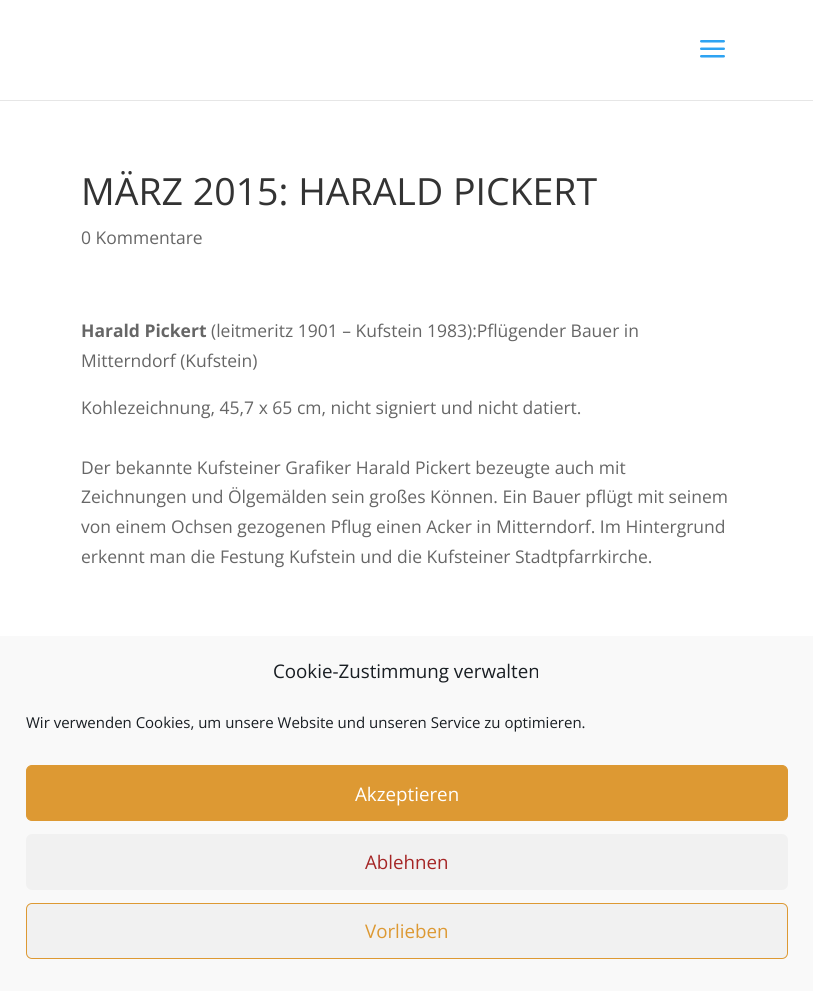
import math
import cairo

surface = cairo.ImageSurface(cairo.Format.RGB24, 813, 991)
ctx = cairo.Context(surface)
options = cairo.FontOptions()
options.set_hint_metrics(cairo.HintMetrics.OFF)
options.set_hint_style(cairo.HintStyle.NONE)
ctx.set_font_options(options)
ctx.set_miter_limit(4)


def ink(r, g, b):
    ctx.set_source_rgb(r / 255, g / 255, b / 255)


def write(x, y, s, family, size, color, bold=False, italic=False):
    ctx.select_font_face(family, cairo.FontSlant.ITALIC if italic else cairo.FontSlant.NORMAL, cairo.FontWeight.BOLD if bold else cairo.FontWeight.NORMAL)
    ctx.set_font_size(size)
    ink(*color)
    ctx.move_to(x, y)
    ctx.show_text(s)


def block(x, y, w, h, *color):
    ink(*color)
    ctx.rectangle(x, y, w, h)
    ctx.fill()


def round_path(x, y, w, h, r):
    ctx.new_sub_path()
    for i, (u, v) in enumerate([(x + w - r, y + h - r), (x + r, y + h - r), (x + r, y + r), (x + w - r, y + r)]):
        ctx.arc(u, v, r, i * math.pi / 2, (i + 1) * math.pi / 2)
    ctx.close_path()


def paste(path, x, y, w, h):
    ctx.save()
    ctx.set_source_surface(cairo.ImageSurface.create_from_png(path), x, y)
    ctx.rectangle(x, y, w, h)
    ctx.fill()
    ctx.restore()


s1 = dict(family="Open Sans", size=37.5, color=(51, 51, 51))
s2 = dict(family="Open Sans", size=17.5, color=(102, 102, 102))
s3 = dict(family="Open Sans", size=17.5, color=(102, 102, 102), bold=True)
s4 = dict(family="Open Sans", size=18.75, color=(25, 30, 35))
s5 = dict(family="Open Sans", size=15, color=(25, 30, 35))
s6 = dict(family="Open Sans", size=18.75, color=(255, 255, 255))
s7 = dict(family="Open Sans", size=18.75, color=(165, 38, 38))
s8 = dict(family="Open Sans", size=18.75, color=(221, 153, 51))

ink(255, 255, 255)
ctx.paint()
ink(230, 230, 230)
ctx.new_path()
ctx.move_to(0, 100)
ctx.line_to(0, 101)
ctx.line_to(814, 101)
ctx.line_to(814, 1)
ctx.line_to(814, 100)
ctx.close_path()
ctx.fill()
paste("pic1.png", 700, 40, 25, 18)
write(81, 205, "MÄRZ 2015: HARALD PICKERT", **s1)
write(81, 244, "0 Kommentare", **s2)
write(81, 337, "Harald Pickert", **s3)
write(211, 337, "(leitmeritz 1901 – Kufstein 1983):Pflügender Bauer in", **s2)
write(81, 367, "Mitterndorf (Kufstein)", **s2)
write(81, 414, "Kohlezeichnung, 45,7 x 65 cm, nicht signiert und nicht datiert.", **s2)
write(81, 474, "Der bekannte Kufsteiner Grafiker Harald Pickert bezeugte auch mit", **s2)
write(81, 503, "Zeichnungen und Ölgemälden sein großes Können. Ein Bauer pflügt mit seinem", **s2)
write(81, 533, "von einem Ochsen gezogenen Pflug einen Acker in Mitterndorf. Im Hintergrund", **s2)
write(81, 563, "erkennt man die Festung Kufstein und die Kufsteiner Stadtpfarrkirche.", **s2)
block(0, 636, 813, 355, 249, 249, 249)
write(273, 678, "Cookie-Zustimmung verwalten", **s4)
write(26, 728, "Wir verwenden Cookies, um unsere Website und unseren Service zu optimieren.", **s5)
ink(221, 153, 51)
round_path(26.5, 765.5, 761, 55, 5.5)
ctx.fill_preserve()
ctx.set_line_width(1)
ctx.stroke()
write(355, 801, "Akzeptieren", **s6)
ink(241, 241, 241)
round_path(26, 834, 762, 56, 6)
ctx.fill()
write(365, 869, "Ablehnen", **s7)
ink(241, 241, 241)
round_path(26.5, 903.5, 761, 55, 5.5)
ctx.fill_preserve()
ink(221, 153, 51)
ctx.stroke()
write(365, 938, "Vorlieben", **s8)
surface.write_to_png("screenshot.png")
